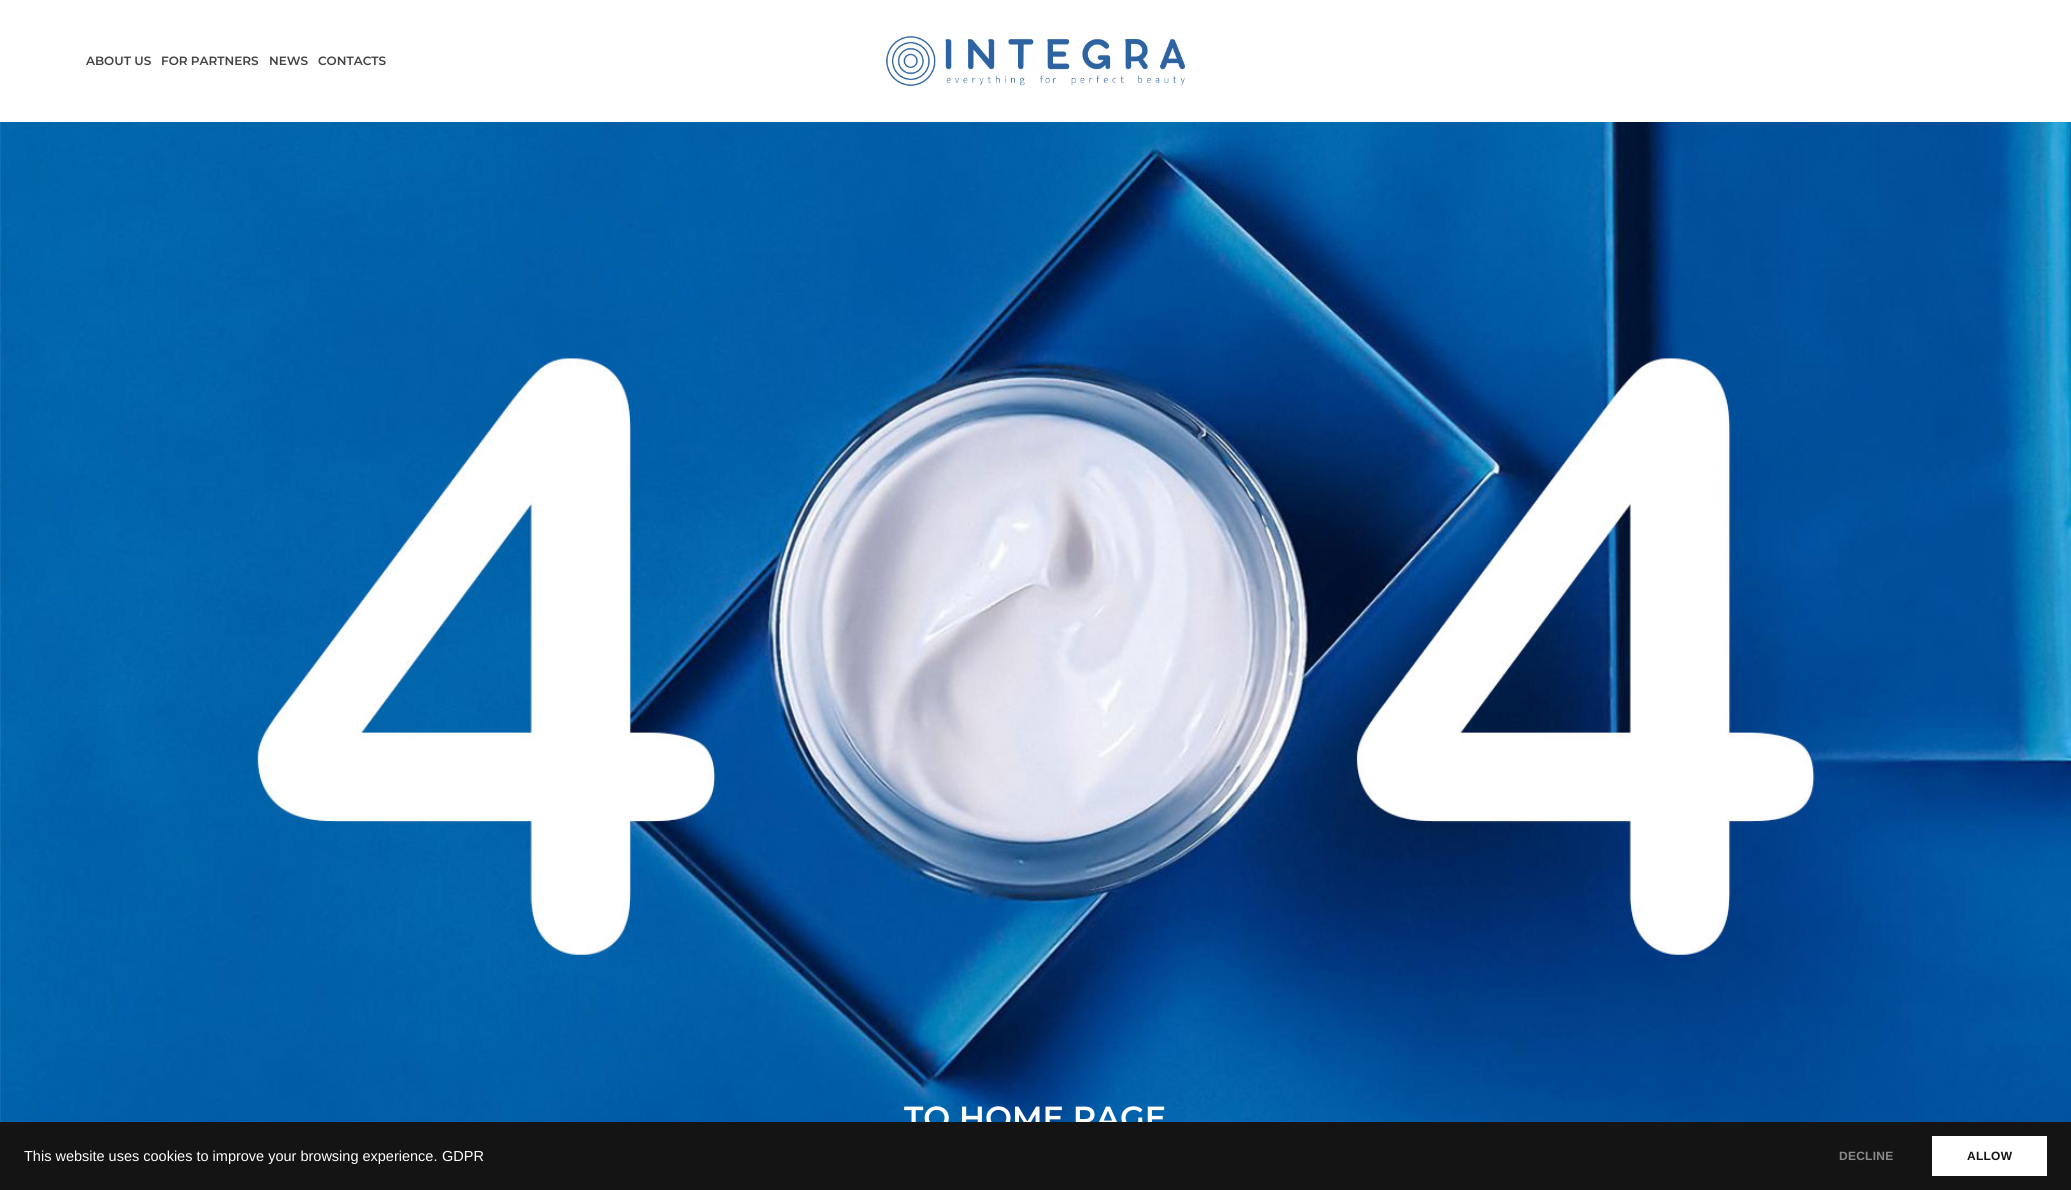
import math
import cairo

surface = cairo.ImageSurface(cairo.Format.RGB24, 2071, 1190)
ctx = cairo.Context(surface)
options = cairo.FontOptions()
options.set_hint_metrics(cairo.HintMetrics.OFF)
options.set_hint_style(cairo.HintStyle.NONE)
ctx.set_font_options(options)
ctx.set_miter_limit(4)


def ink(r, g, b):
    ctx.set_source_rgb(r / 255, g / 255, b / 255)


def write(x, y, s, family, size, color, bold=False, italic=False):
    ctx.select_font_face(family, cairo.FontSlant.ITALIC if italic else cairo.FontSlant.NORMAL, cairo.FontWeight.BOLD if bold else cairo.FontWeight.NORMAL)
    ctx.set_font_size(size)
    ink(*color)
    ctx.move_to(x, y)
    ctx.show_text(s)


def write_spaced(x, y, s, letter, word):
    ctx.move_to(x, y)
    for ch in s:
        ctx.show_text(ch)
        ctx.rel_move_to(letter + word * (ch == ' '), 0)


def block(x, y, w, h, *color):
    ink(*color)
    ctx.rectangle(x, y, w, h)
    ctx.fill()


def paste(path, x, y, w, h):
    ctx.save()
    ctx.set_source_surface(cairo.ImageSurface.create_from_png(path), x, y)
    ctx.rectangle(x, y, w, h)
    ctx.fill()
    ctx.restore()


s1 = dict(family="Montserrat SemiBold", size=12, color=(66, 66, 66))
s2 = dict(family="Montserrat SemiBold", size=32, color=(255, 255, 255))
s3 = dict(family="Liberation Sans", size=14.5, color=(255, 255, 255))

ink(255, 255, 255)
ctx.paint()
write(86, 65, "ABOUT US", **s1)
write(161, 65, "FOR PARTNERS", **s1)
write(269, 65, "NEWS", **s1)
write(318, 65, "CONTACTS", **s1)
paste("pic1.png", 886, 36, 299, 50)
paste("pic2.png", 0, 122, 2071, 1000)
write(904, 1129, "TO HOME PAGE", **s2)
block(0, 1122, 2071, 68, 20, 20, 20)
write(24, 1161, "This website uses cookies to improve your browsing experience.", **s3)
write(442, 1161, "GDPR", **s3)
ctx.select_font_face("Liberation Sans", cairo.FontSlant.NORMAL, cairo.FontWeight.BOLD)
ctx.set_font_size(12)
ink(138, 138, 138)
write_spaced(1839, 1160, "DECLINE", 0.25, 0)
block(1932, 1136, 115, 40, 255, 255, 255)
ink(20, 20, 20)
write_spaced(1967, 1160, "ALLOW", 0.25, 0)
surface.write_to_png("screenshot.png")
